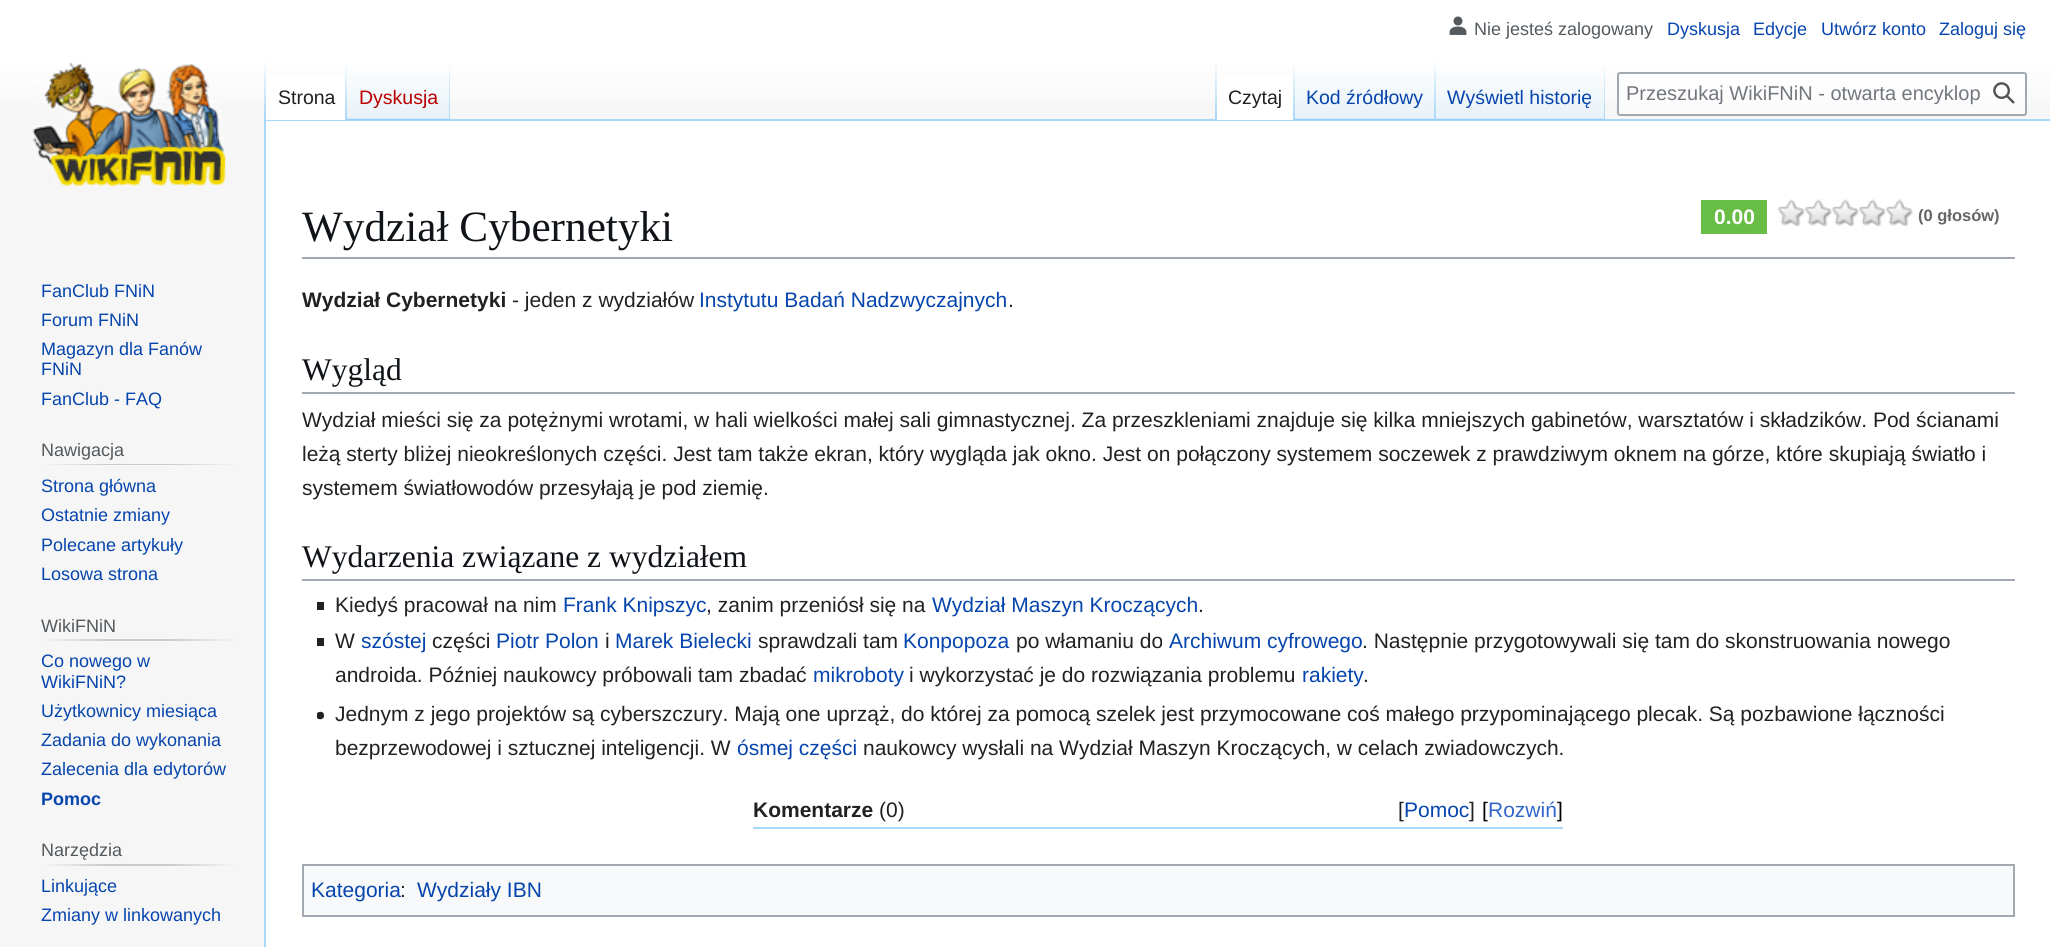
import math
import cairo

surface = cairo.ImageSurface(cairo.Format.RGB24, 2050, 947)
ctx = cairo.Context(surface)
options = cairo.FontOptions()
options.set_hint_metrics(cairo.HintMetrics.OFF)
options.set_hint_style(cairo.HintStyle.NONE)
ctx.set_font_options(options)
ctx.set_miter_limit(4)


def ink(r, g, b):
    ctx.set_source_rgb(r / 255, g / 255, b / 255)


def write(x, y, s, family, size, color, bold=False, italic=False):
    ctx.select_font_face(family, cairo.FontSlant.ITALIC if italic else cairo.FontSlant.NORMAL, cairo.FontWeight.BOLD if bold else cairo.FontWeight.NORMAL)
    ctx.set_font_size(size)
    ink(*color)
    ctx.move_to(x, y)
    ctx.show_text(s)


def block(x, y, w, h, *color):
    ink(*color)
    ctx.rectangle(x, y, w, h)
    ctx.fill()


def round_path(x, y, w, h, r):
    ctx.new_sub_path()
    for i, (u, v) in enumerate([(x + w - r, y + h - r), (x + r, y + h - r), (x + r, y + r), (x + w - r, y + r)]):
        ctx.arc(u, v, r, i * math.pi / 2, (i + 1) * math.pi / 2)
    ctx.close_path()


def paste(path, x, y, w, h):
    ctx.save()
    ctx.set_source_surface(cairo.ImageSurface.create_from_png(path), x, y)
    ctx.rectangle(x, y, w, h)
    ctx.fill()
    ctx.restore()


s1 = dict(family="Liberation Sans", size=18, color=(84, 89, 93))
s2 = dict(family="Liberation Sans", size=18, color=(6, 69, 173))
s3 = dict(family="Liberation Sans", size=19.5, color=(32, 33, 34))
s4 = dict(family="Liberation Sans", size=19.5, color=(186, 0, 0))
s5 = dict(family="Liberation Sans", size=19.5, color=(6, 69, 173))
s6 = dict(family="Liberation Sans", size=20, color=(114, 119, 125))
s7 = dict(family="Liberation Sans", size=18, color=(6, 69, 173), bold=True)
s8 = dict(family="Liberation Serif", size=43.25, color=(16, 20, 24))
s9 = dict(family="Liberation Sans", size=21, color=(255, 255, 255), bold=True)
s10 = dict(family="Liberation Sans", size=16.5, color=(102, 102, 102), bold=True)
s11 = dict(family="Liberation Sans", size=21, color=(32, 33, 34), bold=True)
s12 = dict(family="Liberation Sans", size=21, color=(32, 33, 34))
s13 = dict(family="Liberation Sans", size=21, color=(6, 69, 173))
s14 = dict(family="Liberation Serif", size=31.5, color=(16, 20, 24))
s15 = dict(family="Liberation Sans", size=21, color=(0, 0, 0))
s16 = dict(family="Liberation Sans", size=21, color=(51, 102, 204))

ink(246, 246, 246)
ctx.paint()
gradient = cairo.LinearGradient(1025, 0, 1025, 120)
gradient.add_color_stop_rgba(0.5, 1, 1, 1, 1)
gradient.add_color_stop_rgba(1, 0.965, 0.965, 0.965, 1)
ctx.set_source(gradient)
ctx.rectangle(0, 0, 2050, 103)
ctx.fill()
paste("pic1.png", 1449, 16, 18, 19)
write(1474, 35, "Nie jesteś zalogowany", **s1)
write(1667, 35, "Dyskusja", **s2)
write(1753, 35, "Edycje", **s2)
write(1821, 35, "Utwórz konto", **s2)
write(1939, 35, "Zaloguj się", **s2)
block(264, 119, 1786, 2, 167, 215, 249)
block(264, 119, 2, 828, 167, 215, 249)
gradient = cairo.LinearGradient(265, 60, 265, 120)
gradient.add_color_stop_rgba(0, 0.655, 0.843, 0.976, 0)
gradient.add_color_stop_rgba(1, 0.655, 0.843, 0.976, 1)
ctx.set_source(gradient)
ctx.rectangle(264, 60, 2, 60)
ctx.fill()
block(266, 77, 79, 43, 255, 255, 255)
gradient = cairo.LinearGradient(346, 60, 346, 120)
gradient.add_color_stop_rgba(0, 1, 1, 1, 1)
gradient.add_color_stop_rgba(1, 0.655, 0.843, 0.976, 1)
ctx.set_source(gradient)
ctx.rectangle(345, 60, 2, 60)
ctx.fill()
write(278, 104, "Strona", **s3)
gradient = cairo.LinearGradient(398, 120, 398, 60)
gradient.add_color_stop_rgba(0, 0.467, 0.757, 0.965, 1)
gradient.add_color_stop_rgba(0.03, 0.91, 0.949, 0.973, 1)
gradient.add_color_stop_rgba(1, 1, 1, 1, 1)
ctx.set_source(gradient)
ctx.rectangle(347, 69, 103, 51)
ctx.fill()
gradient = cairo.LinearGradient(449, 60, 449, 120)
gradient.add_color_stop_rgba(0, 0.655, 0.843, 0.976, 0)
gradient.add_color_stop_rgba(1, 0.655, 0.843, 0.976, 1)
ctx.set_source(gradient)
ctx.rectangle(449, 60, 1, 60)
ctx.fill()
write(359, 104, "Dyskusja", **s4)
gradient = cairo.LinearGradient(1216, 60, 1216, 120)
gradient.add_color_stop_rgba(0, 0.655, 0.843, 0.976, 0)
gradient.add_color_stop_rgba(1, 0.655, 0.843, 0.976, 1)
ctx.set_source(gradient)
ctx.rectangle(1215, 60, 2, 60)
ctx.fill()
block(1217, 77, 76, 43, 255, 255, 255)
gradient = cairo.LinearGradient(1294, 60, 1294, 120)
gradient.add_color_stop_rgba(0, 1, 1, 1, 1)
gradient.add_color_stop_rgba(1, 0.655, 0.843, 0.976, 1)
ctx.set_source(gradient)
ctx.rectangle(1293, 60, 2, 60)
ctx.fill()
write(1228, 104, "Czytaj", **s3)
gradient = cairo.LinearGradient(1365, 120, 1365, 60)
gradient.add_color_stop_rgba(0, 0.467, 0.757, 0.965, 1)
gradient.add_color_stop_rgba(0.03, 0.91, 0.949, 0.973, 1)
gradient.add_color_stop_rgba(1, 1, 1, 1, 1)
ctx.set_source(gradient)
ctx.rectangle(1295, 69, 141, 51)
ctx.fill()
gradient = cairo.LinearGradient(1435, 60, 1435, 120)
gradient.add_color_stop_rgba(0, 0.655, 0.843, 0.976, 0)
gradient.add_color_stop_rgba(1, 0.655, 0.843, 0.976, 1)
ctx.set_source(gradient)
ctx.rectangle(1434, 60, 2, 60)
ctx.fill()
write(1306, 104, "Kod źródłowy", **s5)
gradient = cairo.LinearGradient(1520, 120, 1520, 60)
gradient.add_color_stop_rgba(0, 0.467, 0.757, 0.965, 1)
gradient.add_color_stop_rgba(0.03, 0.91, 0.949, 0.973, 1)
gradient.add_color_stop_rgba(1, 1, 1, 1, 1)
ctx.set_source(gradient)
ctx.rectangle(1436, 69, 169, 51)
ctx.fill()
gradient = cairo.LinearGradient(1604, 60, 1604, 120)
gradient.add_color_stop_rgba(0, 0.655, 0.843, 0.976, 0)
gradient.add_color_stop_rgba(1, 0.655, 0.843, 0.976, 1)
ctx.set_source(gradient)
ctx.rectangle(1604, 60, 1, 60)
ctx.fill()
write(1447, 104, "Wyświetl historię", **s5)
ctx.set_source_rgba(1, 1, 1, 0.5)
round_path(1618, 73, 408, 42, 2)
ctx.fill_preserve()
ink(162, 169, 177)
ctx.stroke()
write(1626, 100, "Przeszukaj WikiFNiN - otwarta encyklop", **s6)
paste("pic2.png", 1993, 82, 22, 22)
paste("pic3.png", 32, 62, 194, 124)
write(41, 297, "FanClub FNiN", **s2)
write(41, 326, "Forum FNiN", **s2)
write(41, 355, "Magazyn dla Fanów", **s2)
write(41, 375, "FNiN", **s2)
write(41, 405, "FanClub - FAQ", **s2)
gradient = cairo.LinearGradient(41, 464, 237, 464)
gradient.add_color_stop_rgba(0, 0.965, 0.965, 0.965, 1)
gradient.add_color_stop_rgba(0.33, 0.784, 0.8, 0.82, 1)
gradient.add_color_stop_rgba(0.66, 0.784, 0.8, 0.82, 1)
gradient.add_color_stop_rgba(1, 0.965, 0.965, 0.965, 1)
ctx.set_source(gradient)
ctx.rectangle(41, 464, 196, 1)
ctx.fill()
write(41, 456, "Nawigacja", **s1)
write(41, 492, "Strona główna", **s2)
write(41, 521, "Ostatnie zmiany", **s2)
write(41, 551, "Polecane artykuły", **s2)
write(41, 580, "Losowa strona", **s2)
gradient = cairo.LinearGradient(41, 640, 237, 640)
gradient.add_color_stop_rgba(0, 0.965, 0.965, 0.965, 1)
gradient.add_color_stop_rgba(0.33, 0.784, 0.8, 0.82, 1)
gradient.add_color_stop_rgba(0.66, 0.784, 0.8, 0.82, 1)
gradient.add_color_stop_rgba(1, 0.965, 0.965, 0.965, 1)
ctx.set_source(gradient)
ctx.rectangle(41, 639, 196, 2)
ctx.fill()
write(41, 632, "WikiFNiN", **s1)
write(41, 667, "Co nowego w", **s2)
write(41, 688, "WikiFNiN?", **s2)
write(41, 717, "Użytkownicy miesiąca", **s2)
write(41, 746, "Zadania do wykonania", **s2)
write(41, 775, "Zalecenia dla edytorów", **s2)
write(41, 805, "Pomoc", **s7)
gradient = cairo.LinearGradient(41, 865, 237, 865)
gradient.add_color_stop_rgba(0, 0.965, 0.965, 0.965, 1)
gradient.add_color_stop_rgba(0.33, 0.784, 0.8, 0.82, 1)
gradient.add_color_stop_rgba(0.66, 0.784, 0.8, 0.82, 1)
gradient.add_color_stop_rgba(1, 0.965, 0.965, 0.965, 1)
ctx.set_source(gradient)
ctx.rectangle(41, 864, 196, 2)
ctx.fill()
write(41, 856, "Narzędzia", **s1)
write(41, 892, "Linkujące", **s2)
write(41, 921, "Zmiany w linkowanych", **s2)
block(266, 121, 1784, 826, 255, 255, 255)
block(302, 257, 1713, 2, 162, 169, 177)
write(302, 241, "Wydział Cybernetyki", **s8)
block(1701, 200, 66, 34, 104, 189, 70)
write(1714, 224, "0.00", **s9)
paste("pic4.png", 1777, 199, 28, 28)
paste("pic5.png", 1804, 199, 28, 28)
paste("pic6.png", 1831, 199, 28, 28)
paste("pic6.png", 1858, 199, 28, 28)
paste("pic5.png", 1885, 199, 28, 28)
write(1918, 221, "(0 głosów)", **s10)
write(302, 307, "Wydział Cybernetyki", **s11)
write(512, 307, "- jeden z wydziałów", **s12)
write(699, 307, "Instytutu Badań Nadzwyczajnych", **s13)
write(1008, 307, ".", **s12)
block(302, 392, 1713, 2, 162, 169, 177)
write(302, 380, "Wygląd", **s14)
write(302, 427, "Wydział mieści się za potężnymi wrotami, w hali wielkości małej sali gimnastycznej. Za przeszkleniami znajduje się kilka mniejszych gabinetów, warsztatów i składzików. Pod ścianami", **s12)
write(302, 461, "leżą sterty bliżej nieokreślonych części. Jest tam także ekran, który wygląda jak okno. Jest on połączony systemem soczewek z prawdziwym oknem na górze, które skupiają światło i", **s12)
write(302, 495, "systemem światłowodów przesyłają je pod ziemię.", **s12)
block(302, 579, 1713, 2, 162, 169, 177)
write(302, 567, "Wydarzenia związane z wydziałem", **s14)
block(317, 602, 7, 8, 32, 33, 34)
write(335, 612, "Kiedyś pracował na nim", **s12)
write(563, 612, "Frank Knipszyc", **s13)
write(706, 612, ", zanim przeniósł się na", **s12)
write(932, 612, "Wydział Maszyn Kroczących", **s13)
write(1198, 612, ".", **s12)
block(317, 638, 7, 8, 32, 33, 34)
write(335, 648, "W", **s12)
write(361, 648, "szóstej", **s13)
write(432, 648, "części", **s12)
write(496, 648, "Piotr Polon", **s13)
write(605, 648, "i", **s12)
write(615, 648, "Marek Bielecki", **s13)
write(758, 648, "sprawdzali tam", **s12)
write(903, 648, "Konpopoza", **s13)
write(1016, 648, "po włamaniu do", **s12)
write(1169, 648, "Archiwum cyfrowego", **s13)
write(1362, 648, ". Następnie przygotowywali się tam do skonstruowania nowego", **s12)
write(335, 682, "androida. Później naukowcy próbowali tam zbadać", **s12)
write(813, 682, "mikroboty", **s13)
write(909, 682, "i wykorzystać je do rozwiązania problemu", **s12)
write(1302, 682, "rakiety", **s13)
write(1363, 682, ".", **s12)
paste("pic7.png", 317, 711, 7, 9)
write(335, 721, "Jednym z jego projektów są cyberszczury. Mają one uprząż, do której za pomocą szelek jest przymocowane coś małego przypominającego plecak. Są pozbawione łączności", **s12)
write(335, 755, "bezprzewodowej i sztucznej inteligencji. W", **s12)
write(737, 755, "ósmej części", **s13)
write(863, 755, "naukowcy wysłali na Wydział Maszyn Kroczących, w celach zwiadowczych.", **s12)
block(753, 827, 810, 2, 167, 215, 249)
write(753, 817, "Komentarze", **s11)
write(879, 817, "(0)", **s12)
write(1398, 817, "[", **s12)
write(1404, 817, "Pomoc", **s13)
write(1469, 817, "]", **s12)
write(1482, 817, "[", **s15)
write(1488, 817, "Rozwiń", **s16)
write(1557, 817, "]", **s15)
ink(248, 249, 250)
ctx.rectangle(303, 865, 1711, 51)
ctx.fill_preserve()
ink(162, 169, 177)
ctx.stroke()
write(311, 897, "Kategoria", **s13)
write(400, 897, ":", **s12)
write(417, 897, "Wydziały IBN", **s13)
surface.write_to_png("screenshot.png")
